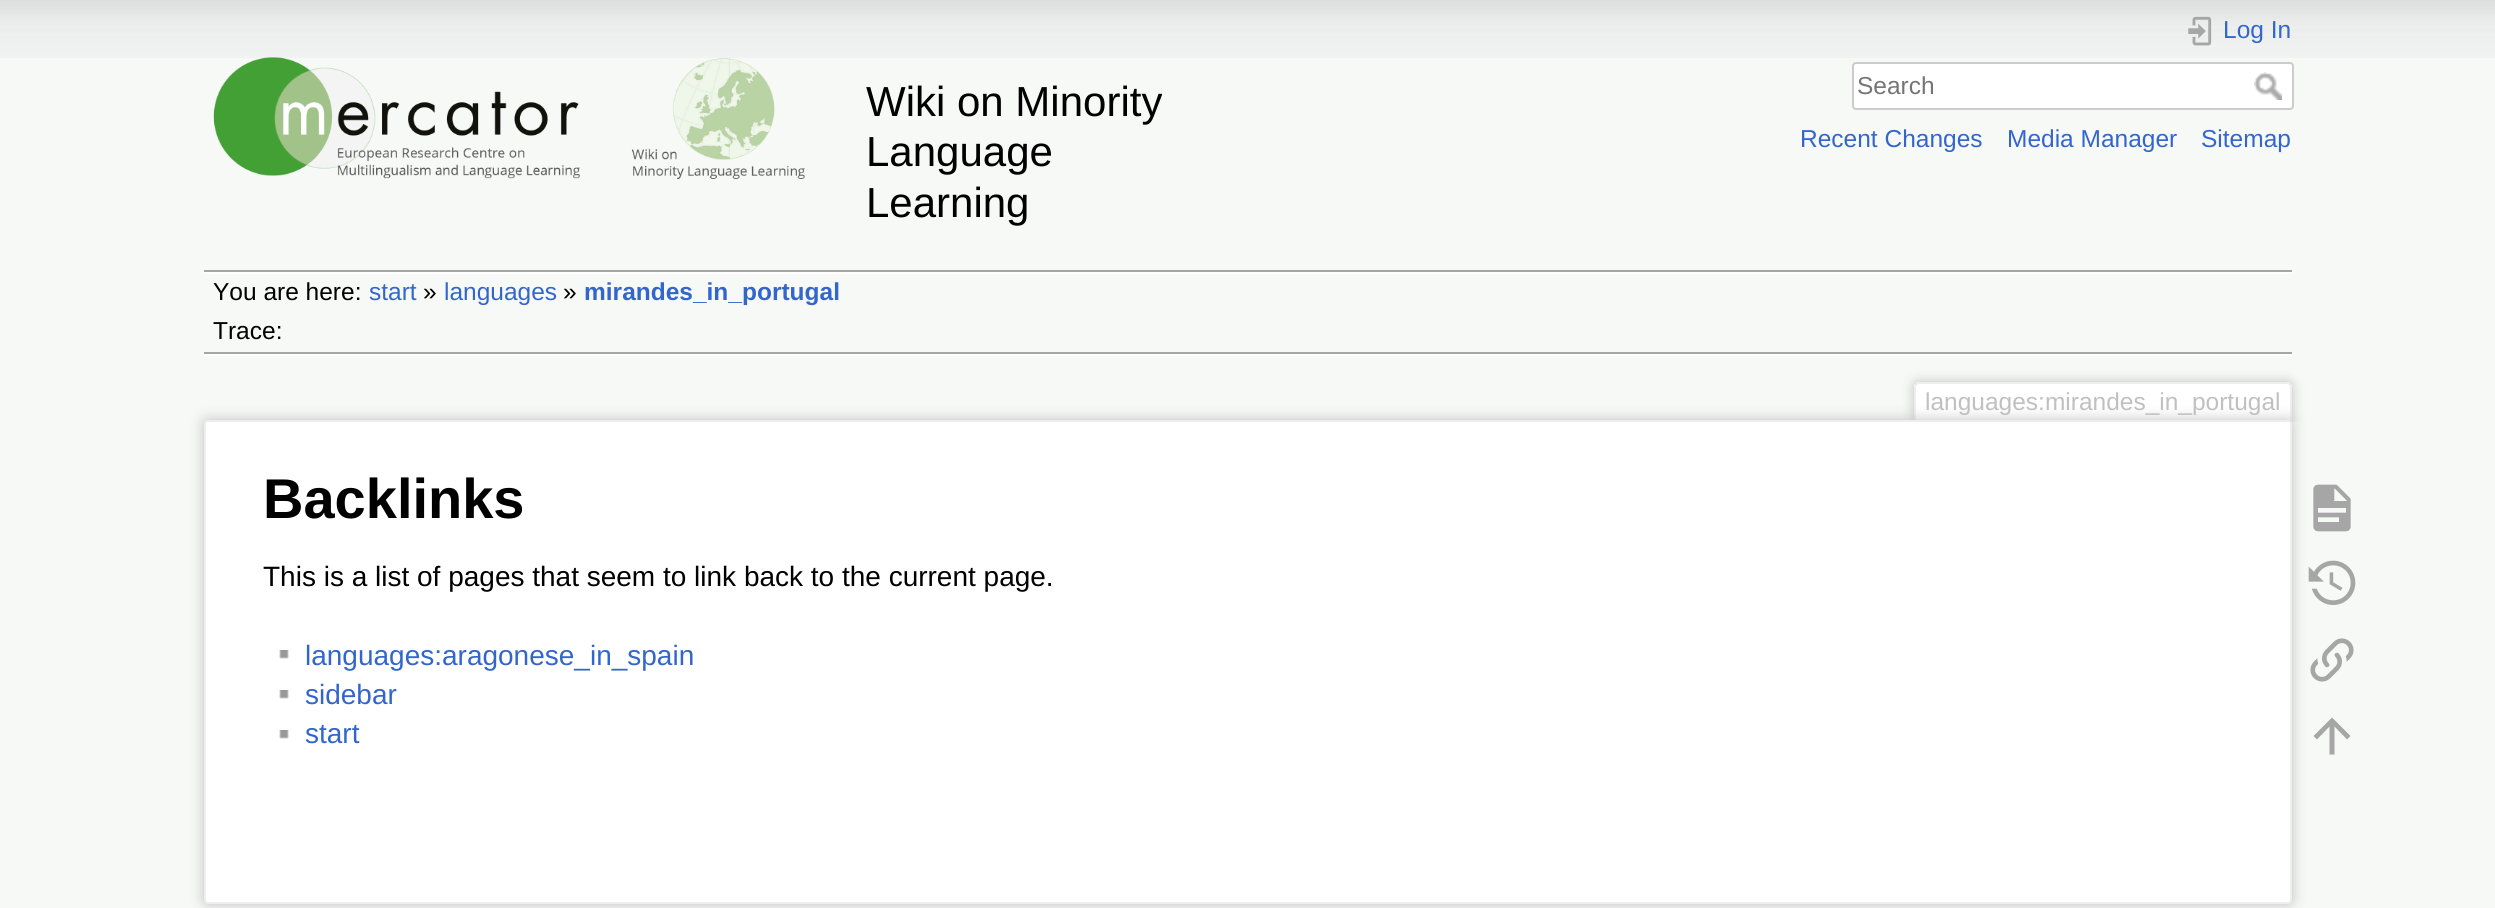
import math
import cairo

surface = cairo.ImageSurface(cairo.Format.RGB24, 2495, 908)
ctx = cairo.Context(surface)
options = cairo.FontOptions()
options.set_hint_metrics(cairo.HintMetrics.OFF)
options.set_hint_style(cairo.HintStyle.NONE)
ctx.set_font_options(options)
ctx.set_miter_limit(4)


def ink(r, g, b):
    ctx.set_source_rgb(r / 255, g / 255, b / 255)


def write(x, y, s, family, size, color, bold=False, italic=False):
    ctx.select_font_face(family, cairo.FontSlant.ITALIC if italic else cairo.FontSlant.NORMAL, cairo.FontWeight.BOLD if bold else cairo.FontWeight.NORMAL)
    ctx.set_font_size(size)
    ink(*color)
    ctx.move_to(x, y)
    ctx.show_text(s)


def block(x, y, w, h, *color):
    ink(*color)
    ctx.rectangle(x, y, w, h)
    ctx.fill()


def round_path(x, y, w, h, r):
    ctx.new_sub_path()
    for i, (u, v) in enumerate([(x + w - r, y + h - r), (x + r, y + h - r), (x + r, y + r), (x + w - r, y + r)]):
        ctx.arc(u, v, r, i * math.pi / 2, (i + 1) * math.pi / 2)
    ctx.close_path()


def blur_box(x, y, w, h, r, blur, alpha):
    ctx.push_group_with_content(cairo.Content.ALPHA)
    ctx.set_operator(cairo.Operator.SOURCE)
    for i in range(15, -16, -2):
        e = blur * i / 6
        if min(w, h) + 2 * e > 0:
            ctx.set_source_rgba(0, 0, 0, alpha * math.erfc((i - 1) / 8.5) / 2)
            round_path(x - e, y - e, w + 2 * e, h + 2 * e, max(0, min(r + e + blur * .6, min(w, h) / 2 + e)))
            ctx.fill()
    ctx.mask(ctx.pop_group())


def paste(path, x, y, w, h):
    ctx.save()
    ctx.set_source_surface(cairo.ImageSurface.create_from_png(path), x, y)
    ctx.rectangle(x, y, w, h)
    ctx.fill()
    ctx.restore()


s1 = dict(family="Liberation Sans", size=42, color=(0, 0, 0))
s2 = dict(family="Liberation Sans", size=24.5, color=(51, 102, 204))
s3 = dict(family="Liberation Sans", size=24.5, color=(117, 117, 117))
s4 = dict(family="Liberation Sans", size=24.5, color=(0, 0, 0))
s5 = dict(family="Liberation Sans", size=24.5, color=(51, 102, 204), bold=True)
s6 = dict(family="Liberation Sans", size=24.5, color=(192, 192, 192))
s7 = dict(family="Liberation Sans", size=56, color=(0, 0, 0), bold=True)
s8 = dict(family="Liberation Sans", size=28, color=(0, 0, 0))
s9 = dict(family="Liberation Sans", size=28, color=(51, 102, 204))

ink(247, 249, 247)
ctx.paint()
paste("pic1.png", 0, 0, 2495, 58)
paste("pic2.png", 213, 57, 592, 122)
write(866, 116, "Wiki on Minority", **s1)
write(866, 166, "Language", **s1)
write(866, 217, "Learning", **s1)
paste("pic3.png", 2188, 16, 24, 30)
write(2223, 38, "Log In", **s2)
ink(255, 255, 255)
round_path(1853, 63, 440, 46, 3)
ctx.fill_preserve()
ink(204, 204, 204)
ctx.stroke()
write(1857, 94, "Search", **s3)
paste("pic4.png", 2254, 72, 28, 28)
write(1800, 147, "Recent Changes", **s2)
write(2007, 147, "Media Manager", **s2)
write(2201, 147, "Sitemap", **s2)
block(204, 270, 2088, 2, 166, 166, 166)
block(204, 354, 2088, 2, 255, 255, 255)
block(204, 272, 2088, 2, 255, 255, 255)
write(213, 300, "You are here:", **s4)
write(369, 300, "start", **s2)
write(423, 300, "»", **s4)
write(444, 300, "languages", **s2)
write(563, 300, "»", **s4)
write(584, 300, "mirandes_in_portugal", **s5)
block(204, 352, 2088, 2, 166, 166, 166)
write(213, 339, "Trace:", **s4)
ctx.save()
ctx.rectangle(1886, 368, 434, 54)
ctx.clip()
ink(192, 192, 192)
blur_box(1914, 382, 378, 40, 4, 6, 1)
ctx.restore()
ink(255, 255, 255)
ctx.new_path()
ctx.move_to(1918, 384)
ctx.line_to(2288, 384)
ctx.curve_to(2289, 384, 2290, 385, 2290, 386)
ctx.line_to(2290, 422)
ctx.line_to(1916, 422)
ctx.line_to(1916, 386)
ctx.curve_to(1916, 385, 1917, 384, 1918, 384)
ctx.close_path()
ctx.fill()
block(1916, 382, 374, 2, 238, 238, 238)
block(2290, 384, 2, 38, 238, 238, 238)
block(1914, 384, 2, 38, 238, 238, 238)
write(1925, 410, "languages:mirandes_in_portugal", **s6)
ink(192, 192, 192)
blur_box(204, 420, 2088, 484, 4, 7, 1)
ink(255, 255, 255)
round_path(205, 421, 2086, 482, 3)
ctx.fill_preserve()
ink(238, 238, 238)
ctx.stroke()
write(263, 518, "Backlinks", **s7)
write(263, 586, "This is a list of pages that seem to link back to the current page.", **s8)
paste("pic5.png", 279, 650, 10, 9)
write(305, 665, "languages:aragonese_in_spain", **s9)
paste("pic5.png", 279, 690, 10, 9)
write(305, 704, "sidebar", **s9)
paste("pic5.png", 279, 730, 10, 9)
write(305, 743, "start", **s9)
paste("pic6.png", 2313, 484, 38, 48)
paste("pic7.png", 2308, 560, 48, 45)
paste("pic8.png", 2310, 638, 44, 44)
ink(166, 166, 166)
ctx.new_path()
ctx.move_to(2334.5, 754.5)
ctx.line_to(2329.5, 754.5)
ctx.line_to(2329.5, 726.5)
ctx.line_to(2317, 739.5)
ctx.line_to(2313.5, 736)
ctx.line_to(2332, 717.5)
ctx.line_to(2350.5, 736)
ctx.line_to(2347, 739.5)
ctx.line_to(2334.5, 726.5)
ctx.close_path()
ctx.fill()
surface.write_to_png("screenshot.png")
